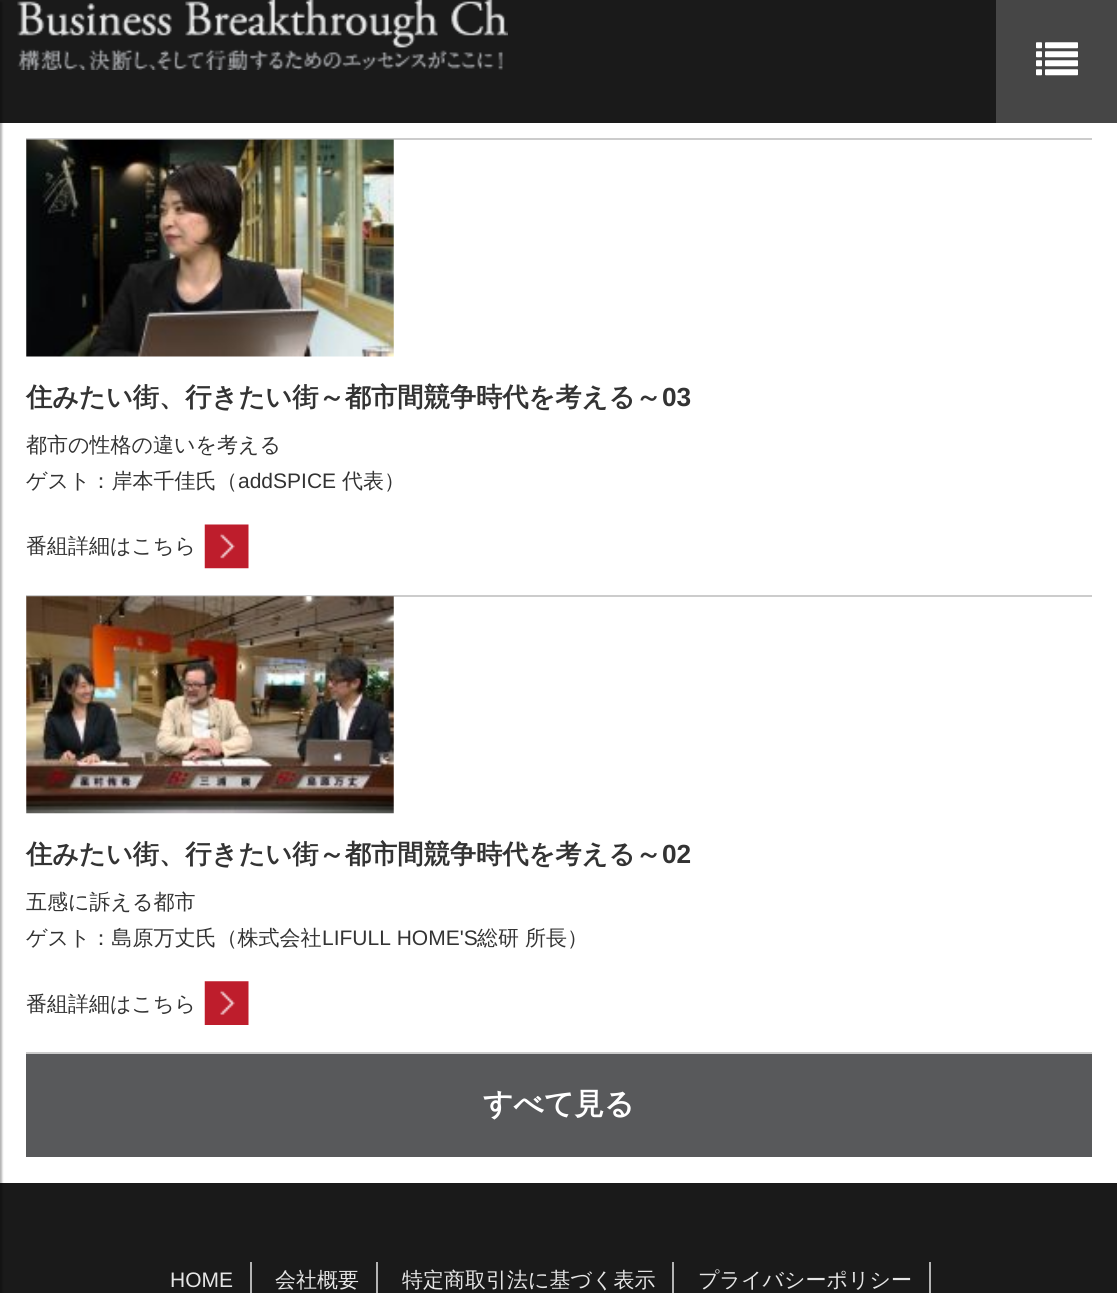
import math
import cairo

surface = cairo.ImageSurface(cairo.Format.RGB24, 1117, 1293)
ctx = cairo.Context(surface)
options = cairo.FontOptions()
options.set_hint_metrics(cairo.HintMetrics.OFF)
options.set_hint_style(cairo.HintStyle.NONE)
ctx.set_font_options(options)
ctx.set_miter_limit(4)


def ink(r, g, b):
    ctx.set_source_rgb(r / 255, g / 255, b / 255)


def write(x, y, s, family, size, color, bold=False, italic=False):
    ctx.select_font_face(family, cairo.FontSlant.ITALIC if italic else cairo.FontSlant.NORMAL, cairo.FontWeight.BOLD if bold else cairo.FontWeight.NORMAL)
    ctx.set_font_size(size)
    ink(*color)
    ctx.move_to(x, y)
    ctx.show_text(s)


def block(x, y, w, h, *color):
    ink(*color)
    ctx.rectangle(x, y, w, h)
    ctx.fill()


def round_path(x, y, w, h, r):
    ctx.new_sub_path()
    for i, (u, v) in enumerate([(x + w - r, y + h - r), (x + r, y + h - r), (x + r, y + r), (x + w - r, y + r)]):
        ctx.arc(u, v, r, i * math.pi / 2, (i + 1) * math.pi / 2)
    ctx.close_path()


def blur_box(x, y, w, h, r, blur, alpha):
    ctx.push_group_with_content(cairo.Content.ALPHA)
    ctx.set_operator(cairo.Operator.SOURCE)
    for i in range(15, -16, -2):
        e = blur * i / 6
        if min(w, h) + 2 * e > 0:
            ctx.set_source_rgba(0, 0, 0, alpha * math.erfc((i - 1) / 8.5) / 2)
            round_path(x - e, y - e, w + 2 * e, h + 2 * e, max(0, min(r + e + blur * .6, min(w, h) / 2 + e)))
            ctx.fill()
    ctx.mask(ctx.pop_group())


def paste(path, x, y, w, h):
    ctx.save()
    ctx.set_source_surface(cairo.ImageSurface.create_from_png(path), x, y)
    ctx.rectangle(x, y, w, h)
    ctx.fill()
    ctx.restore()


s1 = dict(family="WenQuanYi Zen Hei", size=26.25, color=(51, 51, 51), bold=True)
s2 = dict(family="Liberation Sans", size=26.25, color=(51, 51, 51), bold=True)
s3 = dict(family="WenQuanYi Zen Hei Medium", size=21, color=(51, 51, 51))
s4 = dict(family="Liberation Sans", size=21, color=(51, 51, 51))
s5 = dict(family="WenQuanYi Zen Hei", size=29.75, color=(255, 255, 255), bold=True)
s6 = dict(family="Liberation Sans", size=21, color=(230, 230, 230))
s7 = dict(family="WenQuanYi Zen Hei Medium", size=21, color=(230, 230, 230))

ink(255, 255, 255)
ctx.paint()
block(0, 0, 996, 123, 26, 26, 26)
paste("pic1.png", 17, 0, 491, 70)
block(996, 0, 121, 123, 70, 70, 70)
paste("pic2.png", 1036, 42, 42, 34)
block(0, 1183, 1117, 110, 26, 26, 26)
ink(0, 0, 0)
blur_box(-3, 2, 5, 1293, 0, 1, 0.3)
block(26, 1052, 1066, 2, 204, 204, 204)
block(26, 138, 1066, 2, 204, 204, 204)
paste("pic3.png", 26, 139, 368, 218)
write(26, 406, "住みたい街、行きたい街～都市間競争時代を考える～", **s1)
write(662, 406, "03", **s2)
write(26, 452, "都市の性格の違いを考える", **s3)
write(26, 488, "ゲスト：岸本千佳氏（", **s3)
write(238, 488, "addSPICE", **s4)
write(342, 488, "代表）", **s3)
paste("pic4.png", 204, 524, 45, 45)
write(26, 553, "番組詳細はこちら", **s3)
block(26, 595, 1066, 2, 204, 204, 204)
paste("pic5.png", 26, 596, 368, 218)
write(26, 863, "住みたい街、行きたい街～都市間競争時代を考える～", **s1)
write(662, 863, "02", **s2)
write(26, 909, "五感に訴える都市", **s3)
write(26, 945, "ゲスト：島原万丈氏（株式会社", **s3)
write(322, 945, "LIFULL HOME'S", **s4)
write(477, 945, "総研", **s3)
write(525, 945, "所長）", **s3)
paste("pic6.png", 204, 981, 45, 44)
write(26, 1011, "番組詳細はこちら", **s3)
block(26, 1054, 1066, 103, 88, 89, 91)
write(483, 1114, "すべて見る", **s5)
block(250, 1262, 2, 31, 179, 179, 179)
write(170, 1287, "HOME", **s6)
block(376, 1262, 2, 31, 179, 179, 179)
write(275, 1287, "会社概要", **s7)
block(672, 1262, 2, 31, 179, 179, 179)
write(402, 1287, "特定商取引法に基づく表示", **s7)
block(929, 1262, 2, 31, 179, 179, 179)
write(698, 1287, "プライバシーポリシー", **s7)
surface.write_to_png("screenshot.png")
